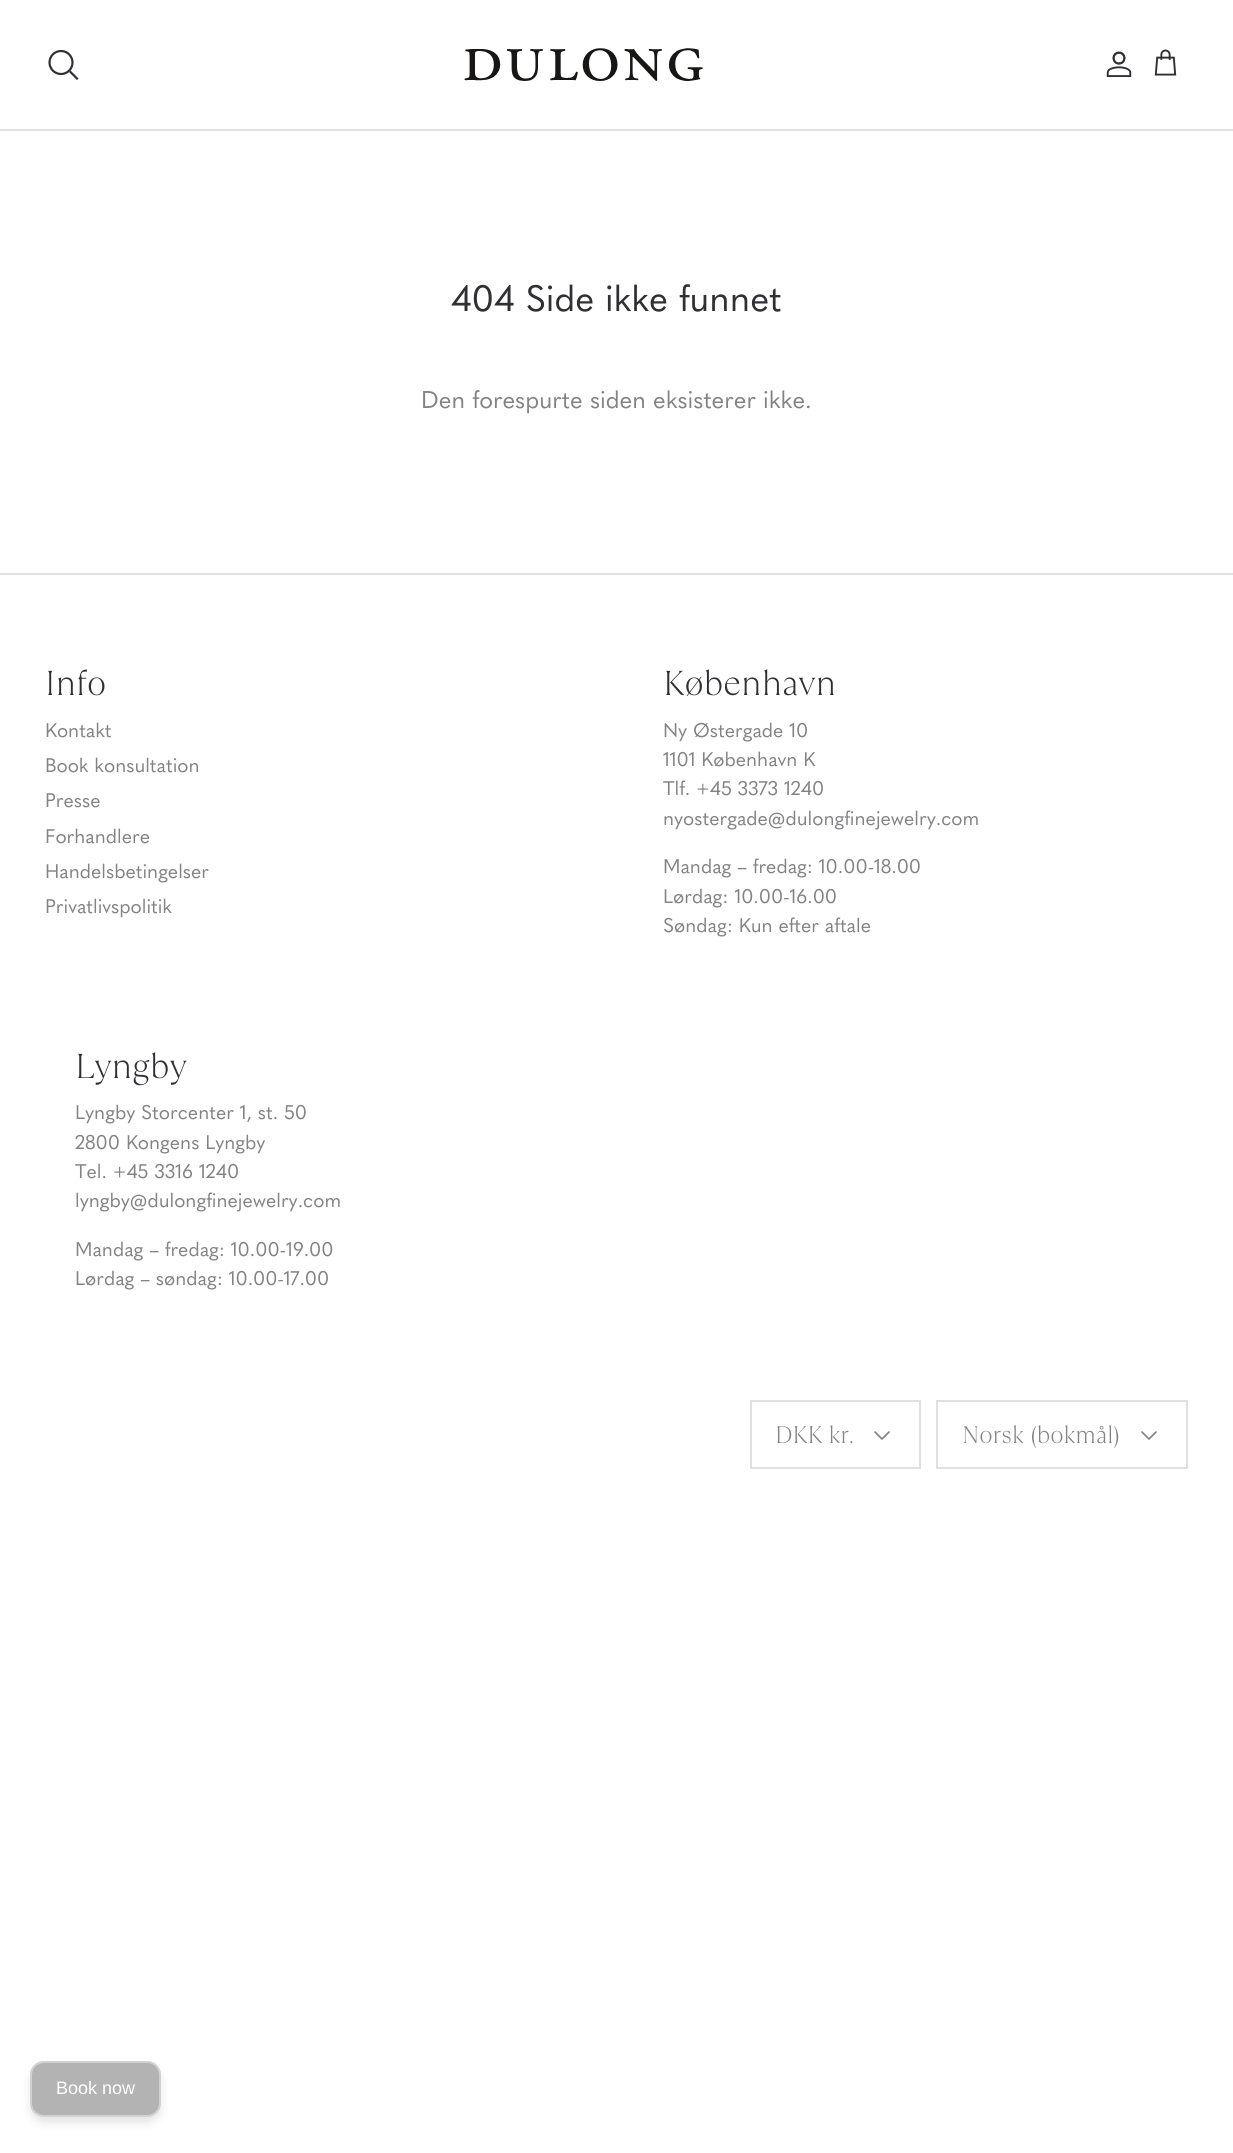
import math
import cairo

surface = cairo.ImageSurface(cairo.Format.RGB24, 1233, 2153)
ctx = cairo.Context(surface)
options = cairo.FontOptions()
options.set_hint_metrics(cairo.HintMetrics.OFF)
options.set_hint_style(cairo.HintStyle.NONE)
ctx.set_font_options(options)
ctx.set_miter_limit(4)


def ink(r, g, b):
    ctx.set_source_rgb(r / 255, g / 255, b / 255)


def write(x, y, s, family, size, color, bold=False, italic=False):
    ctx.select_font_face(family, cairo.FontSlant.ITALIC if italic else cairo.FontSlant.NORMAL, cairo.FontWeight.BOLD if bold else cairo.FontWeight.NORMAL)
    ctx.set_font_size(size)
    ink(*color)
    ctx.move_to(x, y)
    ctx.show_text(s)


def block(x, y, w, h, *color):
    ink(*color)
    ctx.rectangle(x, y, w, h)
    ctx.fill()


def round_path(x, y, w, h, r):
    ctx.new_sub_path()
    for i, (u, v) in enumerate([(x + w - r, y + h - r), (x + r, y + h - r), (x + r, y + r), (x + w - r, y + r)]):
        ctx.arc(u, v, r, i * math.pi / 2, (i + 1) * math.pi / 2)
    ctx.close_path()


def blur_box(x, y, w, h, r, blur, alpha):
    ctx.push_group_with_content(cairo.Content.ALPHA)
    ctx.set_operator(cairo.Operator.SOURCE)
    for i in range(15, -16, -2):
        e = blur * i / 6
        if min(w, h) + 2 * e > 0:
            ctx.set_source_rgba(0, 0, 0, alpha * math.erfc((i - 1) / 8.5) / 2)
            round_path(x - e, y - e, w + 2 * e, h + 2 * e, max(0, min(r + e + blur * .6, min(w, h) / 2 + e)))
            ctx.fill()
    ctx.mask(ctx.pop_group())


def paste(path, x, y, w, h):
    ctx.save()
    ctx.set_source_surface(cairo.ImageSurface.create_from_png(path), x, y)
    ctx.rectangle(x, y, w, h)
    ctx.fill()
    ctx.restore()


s1 = dict(family="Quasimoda", size=36, color=(48, 47, 52))
s2 = dict(family="Quasimoda", size=24, color=(131, 130, 133))
s3 = dict(family="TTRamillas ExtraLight", size=34.5, color=(48, 47, 52))
s4 = dict(family="Quasimoda", size=19.5, color=(131, 130, 133))
s5 = dict(family="TTRamillas ExtraLight", size=24, color=(131, 130, 133))
s6 = dict(family="Liberation Sans", size=18, color=(255, 255, 255))

ink(255, 255, 255)
ctx.paint()
block(0, 129, 1233, 2, 223, 227, 232)
ctx.arc(61, 62.5, 11.5, 0, 2 * math.pi)
ink(48, 47, 52)
ctx.set_line_width(2.2)
ctx.stroke()
ctx.new_path()
ctx.move_to(70.5, 72)
ctx.line_to(77, 78.5)
ctx.set_line_cap(cairo.LineCap.SQUARE)
ctx.stroke()
paste("pic1.png", 464, 48, 239, 33)
paste("pic2.png", 1106, 51, 26, 26)
paste("pic3.png", 1154, 49, 23, 27)
write(451, 311, "404 Side ikke funnet", **s1)
write(421, 408, "Den forespurte siden eksisterer ikke.", **s2)
block(0, 573, 1233, 2, 223, 227, 232)
write(45, 695, "Info", **s3)
write(45, 737, "Kontakt", **s4)
write(45, 772, "Book konsultation", **s4)
write(45, 807, "Presse", **s4)
write(45, 843, "Forhandlere", **s4)
write(45, 878, "Handelsbetingelser", **s4)
write(45, 913, "Privatlivspolitik", **s4)
write(663, 695, "København", **s3)
write(663, 737, "Ny Østergade 10", **s4)
write(663, 766, "1101 København K", **s4)
write(663, 795, "Tlf. +45 3373 1240", **s4)
write(663, 825, "nyostergade@dulongfinejewelry.com", **s4)
write(663, 873, "Mandag – fredag: 10.00-18.00", **s4)
write(663, 903, "Lørdag: 10.00-16.00", **s4)
write(663, 932, "Søndag: Kun efter aftale", **s4)
write(75, 1078, "Lyngby", **s3)
write(75, 1119, "Lyngby Storcenter 1, st. 50", **s4)
write(75, 1149, "2800 Kongens Lyngby", **s4)
write(75, 1178, "Tel. +45 3316 1240", **s4)
write(75, 1207, "lyngby@dulongfinejewelry.com", **s4)
write(75, 1256, "Mandag – fredag: 10.00-19.00", **s4)
write(75, 1285, "Lørdag – søndag: 10.00-17.00", **s4)
ctx.rectangle(751, 1401, 169, 67)
ink(224, 224, 225)
ctx.set_line_width(2)
ctx.set_line_cap(cairo.LineCap.BUTT)
ctx.stroke()
write(775, 1443, "DKK kr.", **s5)
ctx.new_path()
ctx.move_to(875, 1432)
ctx.line_to(882, 1439)
ctx.line_to(889, 1432)
ctx.set_line_width(1.7)
ctx.set_line_cap(cairo.LineCap.ROUND)
ctx.set_line_join(cairo.LineJoin.ROUND)
ctx.stroke()
ctx.rectangle(937, 1401, 250, 67)
ink(224, 224, 225)
ctx.set_line_width(2)
ctx.set_line_cap(cairo.LineCap.BUTT)
ctx.set_line_join(cairo.LineJoin.MITER)
ctx.stroke()
write(962, 1443, "Norsk (bokmål)", **s5)
ctx.new_path()
ctx.move_to(1142, 1432)
ctx.line_to(1149, 1439)
ctx.line_to(1156, 1432)
ctx.set_line_width(1.7)
ctx.set_line_cap(cairo.LineCap.ROUND)
ctx.set_line_join(cairo.LineJoin.ROUND)
ctx.stroke()
ctx.save()
ctx.set_fill_rule(cairo.FillRule.EVEN_ODD)
ctx.new_path()
ctx.move_to(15, 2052)
ctx.line_to(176, 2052)
ctx.line_to(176, 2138)
ctx.line_to(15, 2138)
ctx.close_path()
ctx.move_to(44, 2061)
ctx.line_to(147, 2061)
ctx.curve_to(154.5, 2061, 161, 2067.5, 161, 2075)
ctx.line_to(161, 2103)
ctx.curve_to(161, 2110.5, 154.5, 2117, 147, 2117)
ctx.line_to(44, 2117)
ctx.curve_to(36.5, 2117, 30, 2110.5, 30, 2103)
ctx.line_to(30, 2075)
ctx.curve_to(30, 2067.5, 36.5, 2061, 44, 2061)
ctx.close_path()
ctx.clip()
ink(0, 0, 0)
blur_box(30, 2067, 131, 56, 14, 4.5, 0.1)
ctx.restore()
ctx.set_source_rgba(0, 0, 0, 0.3)
round_path(30, 2061, 131, 56, 14)
ctx.fill()
round_path(31, 2062, 129, 54, 13)
ctx.set_source_rgba(1, 1, 1, 0.4)
ctx.set_line_width(2)
ctx.set_line_cap(cairo.LineCap.BUTT)
ctx.set_line_join(cairo.LineJoin.MITER)
ctx.stroke()
write(56, 2094, "Book now", **s6)
surface.write_to_png("screenshot.png")
